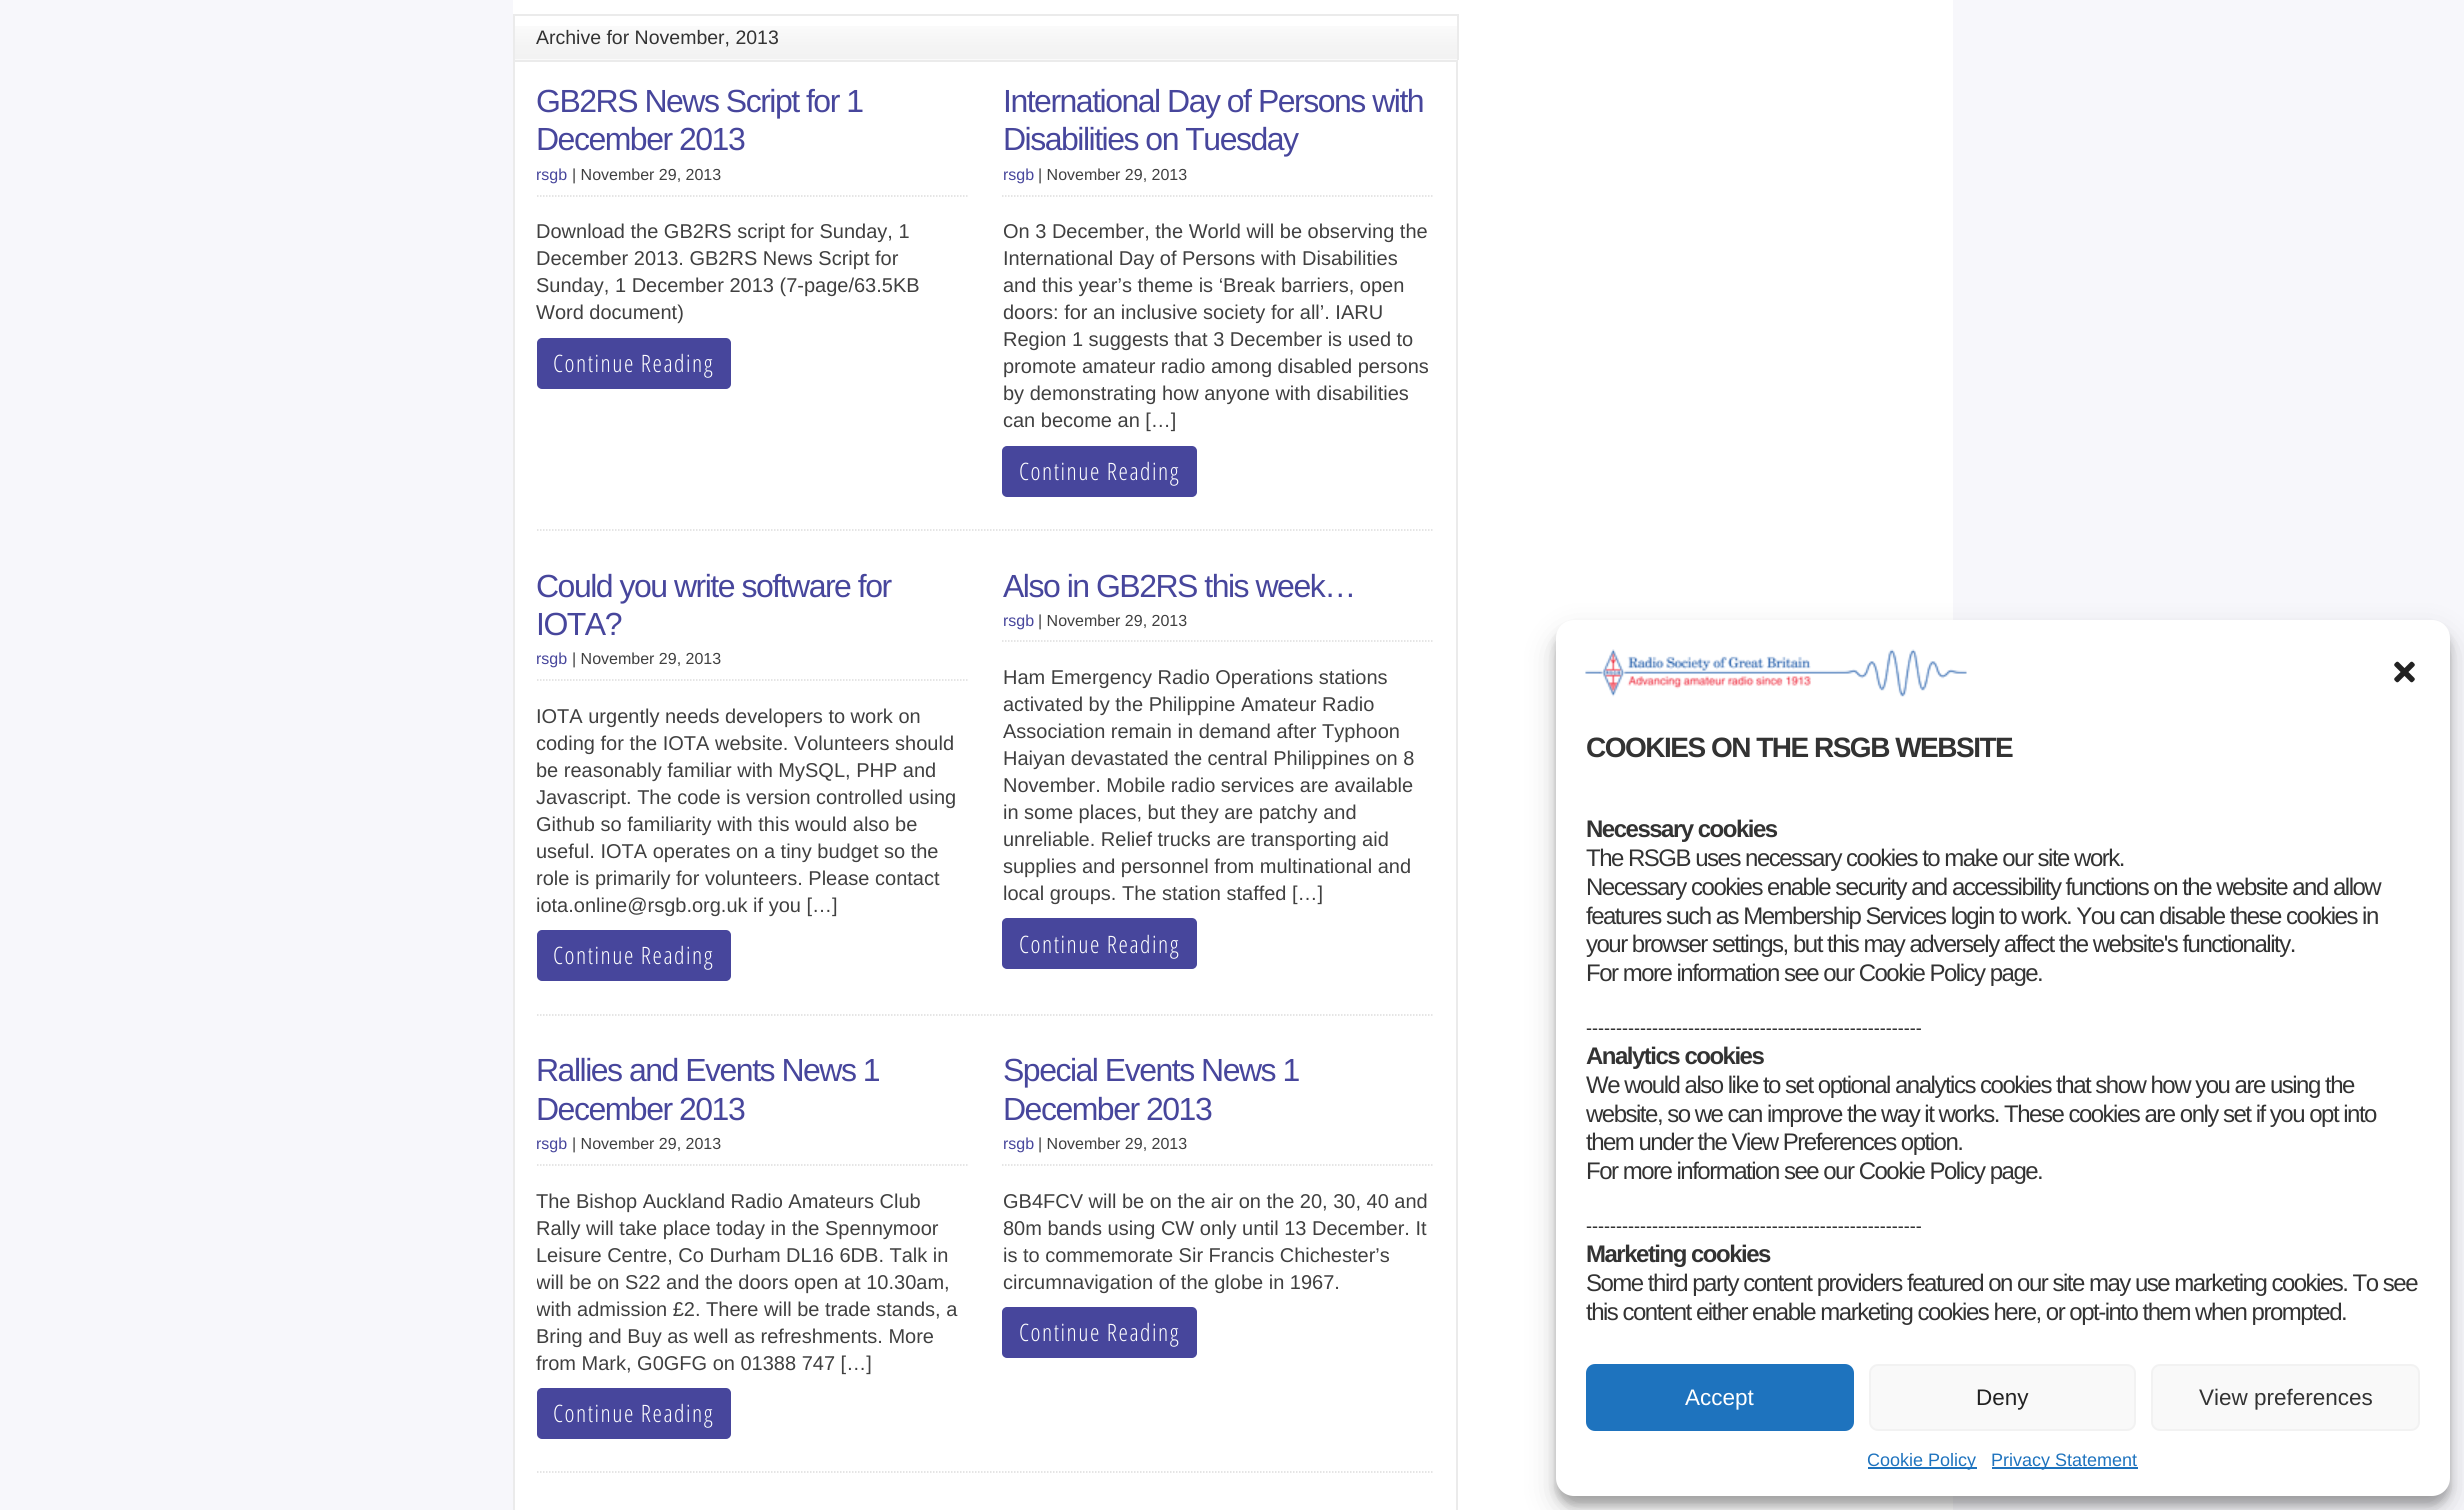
import math
import cairo

surface = cairo.ImageSurface(cairo.Format.RGB24, 2464, 1510)
ctx = cairo.Context(surface)
options = cairo.FontOptions()
options.set_hint_metrics(cairo.HintMetrics.OFF)
options.set_hint_style(cairo.HintStyle.NONE)
ctx.set_font_options(options)
ctx.set_miter_limit(4)


def ink(r, g, b):
    ctx.set_source_rgb(r / 255, g / 255, b / 255)


def write(x, y, s, family, size, color, bold=False, italic=False):
    ctx.select_font_face(family, cairo.FontSlant.ITALIC if italic else cairo.FontSlant.NORMAL, cairo.FontWeight.BOLD if bold else cairo.FontWeight.NORMAL)
    ctx.set_font_size(size)
    ink(*color)
    ctx.move_to(x, y)
    ctx.show_text(s)


def write_spaced(x, y, s, letter, word):
    ctx.move_to(x, y)
    for ch in s:
        ctx.show_text(ch)
        ctx.rel_move_to(letter + word * (ch == ' '), 0)


def block(x, y, w, h, *color):
    ink(*color)
    ctx.rectangle(x, y, w, h)
    ctx.fill()


def round_path(x, y, w, h, r):
    ctx.new_sub_path()
    for i, (u, v) in enumerate([(x + w - r, y + h - r), (x + r, y + h - r), (x + r, y + r), (x + w - r, y + r)]):
        ctx.arc(u, v, r, i * math.pi / 2, (i + 1) * math.pi / 2)
    ctx.close_path()


def blur_box(x, y, w, h, r, blur, alpha):
    ctx.push_group_with_content(cairo.Content.ALPHA)
    ctx.set_operator(cairo.Operator.SOURCE)
    for i in range(15, -16, -2):
        e = blur * i / 6
        if min(w, h) + 2 * e > 0:
            ctx.set_source_rgba(0, 0, 0, alpha * math.erfc((i - 1) / 8.5) / 2)
            round_path(x - e, y - e, w + 2 * e, h + 2 * e, max(0, min(r + e + blur * .6, min(w, h) / 2 + e)))
            ctx.fill()
    ctx.mask(ctx.pop_group())


def paste(path, x, y, w, h):
    ctx.save()
    ctx.set_source_surface(cairo.ImageSurface.create_from_png(path), x, y)
    ctx.rectangle(x, y, w, h)
    ctx.fill()
    ctx.restore()


s1 = dict(family="Liberation Sans", size=19.5, color=(51, 51, 51))
s2 = dict(family="Liberation Sans", size=16, color=(71, 70, 156))
s3 = dict(family="Liberation Sans", size=16, color=(64, 64, 64))
s4 = dict(family="Liberation Sans", size=20, color=(64, 64, 64))
s5 = dict(family="Liberation Sans", size=18, color=(34, 34, 34))
s6 = dict(family="Liberation Sans", size=22.5, color=(255, 255, 255))
s7 = dict(family="Liberation Sans", size=22.5, color=(34, 34, 34))
s8 = dict(family="Liberation Sans", size=22.5, color=(51, 51, 51))
s9 = dict(family="Liberation Sans", size=18, color=(30, 115, 190))

ink(247, 247, 251)
ctx.paint()
block(513, 0, 1440, 1510, 255, 255, 255)
paste("pic1.png", 515, 26, 942, 34)
block(513, 14, 945, 2, 235, 235, 235)
block(1457, 14, 2, 46, 235, 235, 235)
block(513, 14, 2, 46, 235, 235, 235)
write(536, 44, "Archive for November, 2013", **s1)
ctx.rectangle(514, 61, 943, 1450)
ink(235, 235, 235)
ctx.stroke()
ctx.set_font_size(32)
ink(71, 70, 156)
write_spaced(536, 112, "GB2RS News Script for 1", -1.5, 0)
write_spaced(536, 150, "December 2013", -1.5, 0)
ctx.new_path()
ctx.move_to(537, 196)
ctx.line_to(967.5, 196)
ink(221, 221, 221)
ctx.set_line_width(1.5)
ctx.set_dash([1.5, 1.5])
ctx.stroke()
write(536, 180, "rsgb", **s2)
write(572, 180, "| November 29, 2013", **s3)
write(536, 238, "Download the GB2RS script for Sunday, 1", **s4)
write(536, 265, "December 2013. GB2RS News Script for", **s4)
write(536, 292, "Sunday, 1 December 2013 (7-page/63.5KB", **s4)
write(536, 319, "Word document)", **s4)
ink(71, 70, 156)
round_path(538, 339, 192, 49, 4)
ctx.fill_preserve()
ctx.set_line_width(2)
ctx.set_dash([])
ctx.stroke()
ctx.select_font_face("Open Sans Condensed Light")
ctx.set_font_size(24)
ink(255, 255, 255)
write_spaced(553, 372, "Continue Reading", 1.5, 0)
ctx.select_font_face("Liberation Sans")
ctx.set_font_size(32)
ink(71, 70, 156)
write_spaced(1003, 112, "International Day of Persons with", -1.5, 0)
write_spaced(1003, 150, "Disabilities on Tuesday", -1.5, 0)
ctx.new_path()
ctx.move_to(1002, 196)
ctx.line_to(1434, 196)
ink(221, 221, 221)
ctx.set_line_width(1.5)
ctx.set_dash([1.5, 1.5])
ctx.stroke()
write(1003, 180, "rsgb", **s2)
write(1038, 180, "| November 29, 2013", **s3)
write(1003, 238, "On 3 December, the World will be observing the", **s4)
write(1003, 265, "International Day of Persons with Disabilities", **s4)
write(1003, 292, "and this year’s theme is ‘Break barriers, open", **s4)
write(1003, 319, "doors: for an inclusive society for all’. IARU", **s4)
write(1003, 346, "Region 1 suggests that 3 December is used to", **s4)
write(1003, 373, "promote amateur radio among disabled persons", **s4)
write(1003, 400, "by demonstrating how anyone with disabilities", **s4)
write(1003, 427, "can become an […]", **s4)
ink(71, 70, 156)
round_path(1003, 447, 193, 49, 4)
ctx.fill_preserve()
ctx.set_line_width(2)
ctx.set_dash([])
ctx.stroke()
ctx.select_font_face("Open Sans Condensed Light")
ctx.set_font_size(24)
ink(255, 255, 255)
write_spaced(1019, 480, "Continue Reading", 1.5, 0)
ctx.new_path()
ctx.move_to(537, 530)
ctx.line_to(1434, 530)
ink(221, 221, 221)
ctx.set_line_width(1.5)
ctx.set_dash([1.5, 1.5])
ctx.stroke()
ctx.select_font_face("Liberation Sans")
ctx.set_font_size(32)
ink(71, 70, 156)
write_spaced(536, 597, "Could you write software for", -1.5, 0)
write_spaced(536, 635, "IOTA?", -1.5, 0)
ctx.new_path()
ctx.move_to(537, 680)
ctx.line_to(967.5, 680)
ink(221, 221, 221)
ctx.stroke()
write(536, 664, "rsgb", **s2)
write(572, 664, "| November 29, 2013", **s3)
write(536, 723, "IOTA urgently needs developers to work on", **s4)
write(536, 750, "coding for the IOTA website. Volunteers should", **s4)
write(536, 777, "be reasonably familiar with MySQL, PHP and", **s4)
write(536, 804, "Javascript. The code is version controlled using", **s4)
write(536, 831, "Github so familiarity with this would also be", **s4)
write(536, 858, "useful. IOTA operates on a tiny budget so the", **s4)
write(536, 885, "role is primarily for volunteers. Please contact", **s4)
write(536, 912, "iota.online@rsgb.org.uk if you […]", **s4)
ink(71, 70, 156)
round_path(538, 931, 192, 49, 4)
ctx.fill_preserve()
ctx.set_line_width(2)
ctx.set_dash([])
ctx.stroke()
ctx.select_font_face("Open Sans Condensed Light")
ctx.set_font_size(24)
ink(255, 255, 255)
write_spaced(553, 964, "Continue Reading", 1.5, 0)
ctx.select_font_face("Liberation Sans")
ctx.set_font_size(32)
ink(71, 70, 156)
write_spaced(1003, 597, "Also in GB2RS this week…", -1.5, 0)
ctx.new_path()
ctx.move_to(1002, 641)
ctx.line_to(1434, 641)
ink(221, 221, 221)
ctx.set_line_width(1.5)
ctx.set_dash([1.5, 1.5])
ctx.stroke()
write(1003, 626, "rsgb", **s2)
write(1038, 626, "| November 29, 2013", **s3)
write(1003, 684, "Ham Emergency Radio Operations stations", **s4)
write(1003, 711, "activated by the Philippine Amateur Radio", **s4)
write(1003, 738, "Association remain in demand after Typhoon", **s4)
write(1003, 765, "Haiyan devastated the central Philippines on 8", **s4)
write(1003, 792, "November. Mobile radio services are available", **s4)
write(1003, 819, "in some places, but they are patchy and", **s4)
write(1003, 846, "unreliable. Relief trucks are transporting aid", **s4)
write(1003, 873, "supplies and personnel from multinational and", **s4)
write(1003, 900, "local groups. The station staffed […]", **s4)
ink(71, 70, 156)
round_path(1003, 919, 193, 49, 4)
ctx.fill_preserve()
ctx.set_line_width(2)
ctx.set_dash([])
ctx.stroke()
ctx.select_font_face("Open Sans Condensed Light")
ctx.set_font_size(24)
ink(255, 255, 255)
write_spaced(1019, 953, "Continue Reading", 1.5, 0)
ctx.new_path()
ctx.move_to(537, 1015)
ctx.line_to(1434, 1015)
ink(221, 221, 221)
ctx.set_line_width(1.5)
ctx.set_dash([1.5, 1.5])
ctx.stroke()
ctx.select_font_face("Liberation Sans")
ctx.set_font_size(32)
ink(71, 70, 156)
write_spaced(536, 1081, "Rallies and Events News 1", -1.5, 0)
write_spaced(536, 1120, "December 2013", -1.5, 0)
ctx.new_path()
ctx.move_to(537, 1165)
ctx.line_to(967.5, 1165)
ink(221, 221, 221)
ctx.stroke()
write(536, 1149, "rsgb", **s2)
write(572, 1149, "| November 29, 2013", **s3)
write(536, 1208, "The Bishop Auckland Radio Amateurs Club", **s4)
write(536, 1235, "Rally will take place today in the Spennymoor", **s4)
write(536, 1262, "Leisure Centre, Co Durham DL16 6DB. Talk in", **s4)
ctx.save()
ctx.rectangle(537, 1053, 431, 396)
ctx.clip()
write(536, 1289, "will be on S22 and the doors open at 10.30am,", **s4)
write(536, 1316, "with admission £2. There will be trade stands, a", **s4)
ctx.restore()
write(536, 1343, "Bring and Buy as well as refreshments. More", **s4)
write(536, 1370, "from Mark, G0GFG on 01388 747 […]", **s4)
ink(71, 70, 156)
round_path(538, 1389, 192, 49, 4)
ctx.fill_preserve()
ctx.set_line_width(2)
ctx.set_dash([])
ctx.stroke()
ctx.select_font_face("Open Sans Condensed Light")
ctx.set_font_size(24)
ink(255, 255, 255)
write_spaced(553, 1422, "Continue Reading", 1.5, 0)
ctx.select_font_face("Liberation Sans")
ctx.set_font_size(32)
ink(71, 70, 156)
write_spaced(1003, 1081, "Special Events News 1", -1.5, 0)
write_spaced(1003, 1120, "December 2013", -1.5, 0)
ctx.new_path()
ctx.move_to(1002, 1165)
ctx.line_to(1434, 1165)
ink(221, 221, 221)
ctx.set_line_width(1.5)
ctx.set_dash([1.5, 1.5])
ctx.stroke()
write(1003, 1149, "rsgb", **s2)
write(1038, 1149, "| November 29, 2013", **s3)
write(1003, 1208, "GB4FCV will be on the air on the 20, 30, 40 and", **s4)
write(1003, 1235, "80m bands using CW only until 13 December. It", **s4)
write(1003, 1262, "is to commemorate Sir Francis Chichester’s", **s4)
write(1003, 1289, "circumnavigation of the globe in 1967.", **s4)
ink(71, 70, 156)
round_path(1003, 1308, 193, 49, 4)
ctx.fill_preserve()
ctx.set_line_width(2)
ctx.set_dash([])
ctx.stroke()
ctx.select_font_face("Open Sans Condensed Light")
ctx.set_font_size(24)
ink(255, 255, 255)
write_spaced(1019, 1341, "Continue Reading", 1.5, 0)
ctx.new_path()
ctx.move_to(537, 1472)
ctx.line_to(1434, 1472)
ink(221, 221, 221)
ctx.set_line_width(1.5)
ctx.set_dash([1.5, 1.5])
ctx.stroke()
ink(0, 0, 0)
blur_box(1556, 629, 894, 876, 18, 4.5, 0.23)
blur_box(1556, 635, 894, 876, 18, 15, 0.19)
ink(255, 255, 255)
round_path(1556, 620, 894, 876, 18)
ctx.fill()
paste("pic2.png", 1585, 649, 382, 48)
paste("pic3.png", 2394, 661, 21, 22)
ctx.select_font_face("Liberation Sans", cairo.FontSlant.NORMAL, cairo.FontWeight.BOLD)
ctx.set_font_size(28)
ink(51, 51, 51)
write_spaced(1586, 757, "COOKIES ON THE RSGB WEBSITE", -1.5, 0)
ctx.set_font_size(24)
write_spaced(1586, 837, "Necessary cookies", -1.5, 0)
ctx.select_font_face("Liberation Sans")
write_spaced(1586, 866, "The RSGB uses necessary cookies to make our site work.", -1.5, 0)
write_spaced(1586, 895, "Necessary cookies enable security and accessibility functions on the website and allow", -1.5, 0)
write_spaced(1586, 924, "features such as Membership Services login to work. You can disable these cookies in", -1.5, 0)
write_spaced(1586, 952, "your browser settings, but this may adversely affect the website's functionality.", -1.5, 0)
write_spaced(1586, 981, "For more information see our Cookie Policy page.", -1.5, 0)
write(1586, 1034, "--------------------------------------------------------", **s5)
ctx.select_font_face("Liberation Sans", cairo.FontSlant.NORMAL, cairo.FontWeight.BOLD)
ctx.set_font_size(24)
ink(51, 51, 51)
write_spaced(1586, 1064, "Analytics cookies", -1.5, 0)
ctx.select_font_face("Liberation Sans")
write_spaced(1586, 1093, "We would also like to set optional analytics cookies that show how you are using the", -1.5, 0)
write_spaced(1586, 1122, "website, so we can improve the way it works. These cookies are only set if you opt into", -1.5, 0)
write_spaced(1586, 1150, "them under the View Preferences option.", -1.5, 0)
write_spaced(1586, 1179, "For more information see our Cookie Policy page.", -1.5, 0)
write(1586, 1232, "--------------------------------------------------------", **s5)
ctx.select_font_face("Liberation Sans", cairo.FontSlant.NORMAL, cairo.FontWeight.BOLD)
ctx.set_font_size(24)
ink(51, 51, 51)
write_spaced(1586, 1262, "Marketing cookies", -1.5, 0)
ctx.select_font_face("Liberation Sans")
write_spaced(1586, 1291, "Some third party content providers featured on our site may use marketing cookies. To see", -1.5, 0)
write_spaced(1586, 1320, "this content either enable marketing cookies here, or opt-into them when prompted.", -1.5, 0)
ink(30, 115, 190)
round_path(1587, 1365, 266, 65, 8)
ctx.fill_preserve()
ctx.set_line_width(2)
ctx.set_dash([])
ctx.stroke()
write(1685, 1405, "Accept", **s6)
ink(249, 249, 249)
round_path(1870, 1365, 265, 65, 8)
ctx.fill_preserve()
ink(242, 242, 242)
ctx.stroke()
write(1976, 1405, "Deny", **s7)
ink(249, 249, 249)
round_path(2152, 1365, 267, 65, 8)
ctx.fill_preserve()
ink(242, 242, 242)
ctx.stroke()
write(2199, 1405, "View preferences", **s8)
block(1868, 1467, 109, 2, 30, 115, 190)
write(1867, 1466, "Cookie Policy", **s9)
block(1992, 1467, 146, 2, 30, 115, 190)
write(1991, 1466, "Privacy Statement", **s9)
surface.write_to_png("screenshot.png")
